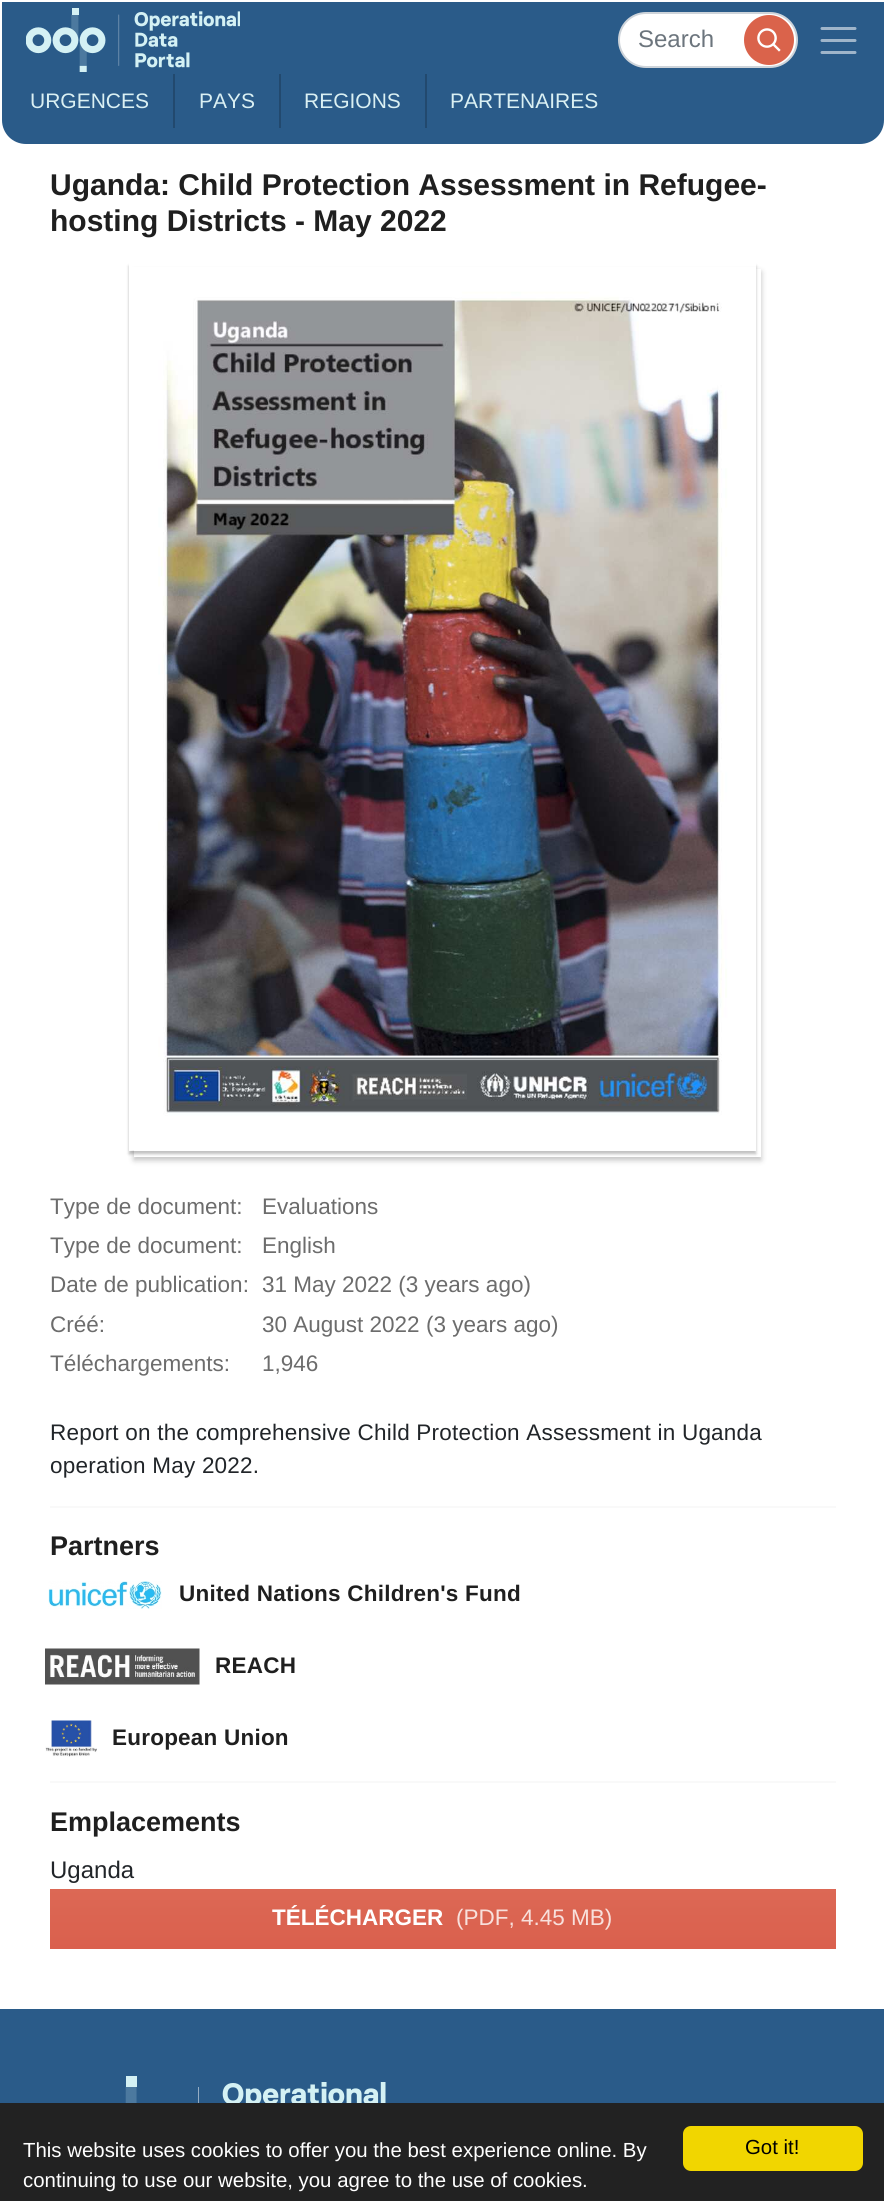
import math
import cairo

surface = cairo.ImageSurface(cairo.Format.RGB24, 884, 2201)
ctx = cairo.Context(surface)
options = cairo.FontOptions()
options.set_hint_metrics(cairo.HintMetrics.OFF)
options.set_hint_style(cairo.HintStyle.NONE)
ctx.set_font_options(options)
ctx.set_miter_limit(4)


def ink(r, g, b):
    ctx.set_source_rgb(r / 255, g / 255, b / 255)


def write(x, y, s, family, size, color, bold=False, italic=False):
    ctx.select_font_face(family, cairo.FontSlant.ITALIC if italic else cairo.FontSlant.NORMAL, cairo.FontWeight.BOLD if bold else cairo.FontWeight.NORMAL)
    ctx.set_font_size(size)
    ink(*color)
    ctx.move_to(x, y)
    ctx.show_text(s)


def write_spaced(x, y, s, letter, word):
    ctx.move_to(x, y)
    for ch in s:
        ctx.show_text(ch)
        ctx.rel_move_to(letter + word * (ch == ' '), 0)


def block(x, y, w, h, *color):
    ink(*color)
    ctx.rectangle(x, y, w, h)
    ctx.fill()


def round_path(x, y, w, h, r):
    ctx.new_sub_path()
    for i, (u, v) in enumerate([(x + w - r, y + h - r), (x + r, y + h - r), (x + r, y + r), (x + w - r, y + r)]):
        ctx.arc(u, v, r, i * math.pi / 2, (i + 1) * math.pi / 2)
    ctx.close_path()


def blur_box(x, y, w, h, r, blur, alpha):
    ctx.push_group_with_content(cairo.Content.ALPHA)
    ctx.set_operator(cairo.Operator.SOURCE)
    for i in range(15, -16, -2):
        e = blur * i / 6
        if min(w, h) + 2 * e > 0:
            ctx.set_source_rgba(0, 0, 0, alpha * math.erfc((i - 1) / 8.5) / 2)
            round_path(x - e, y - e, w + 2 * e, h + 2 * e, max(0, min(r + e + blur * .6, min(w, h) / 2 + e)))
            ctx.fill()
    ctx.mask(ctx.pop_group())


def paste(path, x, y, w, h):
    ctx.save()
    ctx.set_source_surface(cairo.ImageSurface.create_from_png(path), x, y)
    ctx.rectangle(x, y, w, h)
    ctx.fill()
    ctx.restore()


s1 = dict(family="Liberation Sans", size=24, color=(108, 117, 125))
s2 = dict(family="Liberation Sans", size=21, color=(218, 240, 243))
s3 = dict(family="Liberation Sans", size=30, color=(31, 31, 31), bold=True)
s4 = dict(family="Liberation Sans", size=22.5, color=(108, 108, 108))
s5 = dict(family="Liberation Sans", size=27, color=(31, 31, 31), bold=True)
s6 = dict(family="Liberation Sans", size=24, color=(33, 37, 41))
s7 = dict(family="Liberation Sans", size=22.5, color=(255, 255, 255), bold=True)
s8 = dict(family="Liberation Sans", size=22.5, color=(248, 224, 220))
s9 = dict(family="Liberation Sans", size=20.4, color=(255, 255, 255))
s10 = dict(family="Liberation Sans", size=20.4, color=(0, 0, 0))

ink(255, 255, 255)
ctx.paint()
ink(42, 91, 137)
ctx.new_path()
ctx.move_to(4.5, 4.5)
ctx.line_to(881.5, 4.5)
ctx.line_to(881.5, 120)
ctx.curve_to(881.5, 132, 872, 141.5, 860, 141.5)
ctx.line_to(26, 141.5)
ctx.curve_to(14, 141.5, 4.5, 132, 4.5, 120)
ctx.close_path()
ctx.fill_preserve()
ctx.set_line_width(5)
ctx.stroke()
paste("pic1.png", 26, 8, 214, 64)
ink(255, 255, 255)
round_path(619, 13, 178, 54, 27)
ctx.fill_preserve()
ink(206, 212, 218)
ctx.set_line_width(2)
ctx.stroke()
write(638, 47, "Search", **s1)
ink(218, 99, 75)
ctx.new_path()
ctx.arc(769, 40, 25, 0, 2 * math.pi)
ctx.fill()
paste("pic2.png", 757, 28, 24, 24)
ctx.new_path()
ctx.move_to(822, 28.5)
ctx.line_to(855, 28.5)
ctx.move_to(822, 40.5)
ctx.line_to(855, 40.5)
ctx.move_to(822, 52.5)
ctx.line_to(855, 52.5)
ink(159, 181, 202)
ctx.set_line_width(3)
ctx.set_line_cap(cairo.LineCap.ROUND)
ctx.stroke()
write(30, 108, "URGENCES", **s2)
block(173, 74, 2, 54, 34, 73, 110)
write(199, 108, "PAYS", **s2)
block(279, 74, 2, 54, 34, 73, 110)
write(304, 108, "REGIONS", **s2)
block(425, 74, 2, 54, 34, 73, 110)
write(450, 108, "PARTENAIRES", **s2)
write(50, 195, "Uganda: Child Protection Assessment in Refugee-", **s3)
write(50, 231, "hosting Districts - May 2022", **s3)
ink(0, 0, 0)
blur_box(134, 272, 627, 888, 0, 3, 0.25)
block(134, 269, 627, 888, 255, 255, 255)
ctx.save()
ctx.set_fill_rule(cairo.FillRule.EVEN_ODD)
ctx.new_path()
ctx.move_to(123, 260)
ctx.line_to(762, 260)
ctx.line_to(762, 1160)
ctx.line_to(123, 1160)
ctx.close_path()
ctx.move_to(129, 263)
ctx.line_to(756, 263)
ctx.line_to(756, 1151)
ctx.line_to(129, 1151)
ctx.close_path()
ctx.clip()
ink(0, 0, 0)
blur_box(129, 266, 627, 888, 0, 1.5, 0.25)
ctx.restore()
paste("pic3.png", 129, 267, 627, 884)
write(50, 1214, "Type de document:", **s4)
write(262, 1214, "Evaluations", **s4)
write(50, 1253, "Type de document:", **s4)
write(262, 1253, "English", **s4)
write(50, 1292, "Date de publication:", **s4)
write(262, 1292, "31 May 2022 (3 years ago)", **s4)
write(50, 1332, "Créé:", **s4)
write(262, 1332, "30 August 2022 (3 years ago)", **s4)
write(50, 1371, "Téléchargements:", **s4)
write(262, 1371, "1,946", **s4)
ink(33, 37, 41)
write_spaced(50, 1440, "Report on the comprehensive Child Protection Assessment in Uganda", 0.22, 0)
write_spaced(50, 1473, "operation May 2022.", 0.22, 0)
block(50, 1506, 786, 2, 249, 249, 249)
write(50, 1555, "Partners", **s5)
paste("pic4.png", 48, 1581, 114, 28)
ctx.set_font_size(22.5)
write_spaced(179, 1601, "United Nations Children's Fund", 0.22, 0)
paste("pic5.png", 45, 1648, 155, 37)
write_spaced(215, 1673, "REACH", 0.22, 0)
paste("pic6.png", 45, 1720, 52, 37)
write_spaced(112, 1745, "European Union", 0.22, 0)
block(50, 1781, 786, 2, 249, 249, 249)
write(50, 1831, "Emplacements", **s5)
write(50, 1878, "Uganda", **s6)
gradient = cairo.LinearGradient(443, 1889, 443, 1949)
gradient.add_color_stop_rgba(0, 0.863, 0.408, 0.333, 1)
gradient.add_color_stop_rgba(1, 0.855, 0.376, 0.302, 1)
ctx.set_source(gradient)
ctx.rectangle(50, 1889, 786, 60)
ctx.fill()
write(272, 1925, "TÉLÉCHARGER", **s7)
write(456, 1925, "(PDF, 4.45 MB)", **s8)
block(0, 2009, 884, 94, 42, 91, 137)
paste("pic7.png", 125, 2076, 261, 27)
block(0, 2103, 884, 98, 34, 34, 34)
write(23, 2157, "This website uses cookies to offer you the best experience online. By", **s9)
write(23, 2187, "continuing to use our website, you agree to the use of cookies.", **s9)
ink(241, 214, 0)
round_path(683, 2126, 180, 45, 8)
ctx.fill()
write(745, 2154, "Got it!", **s10)
surface.write_to_png("screenshot.png")
